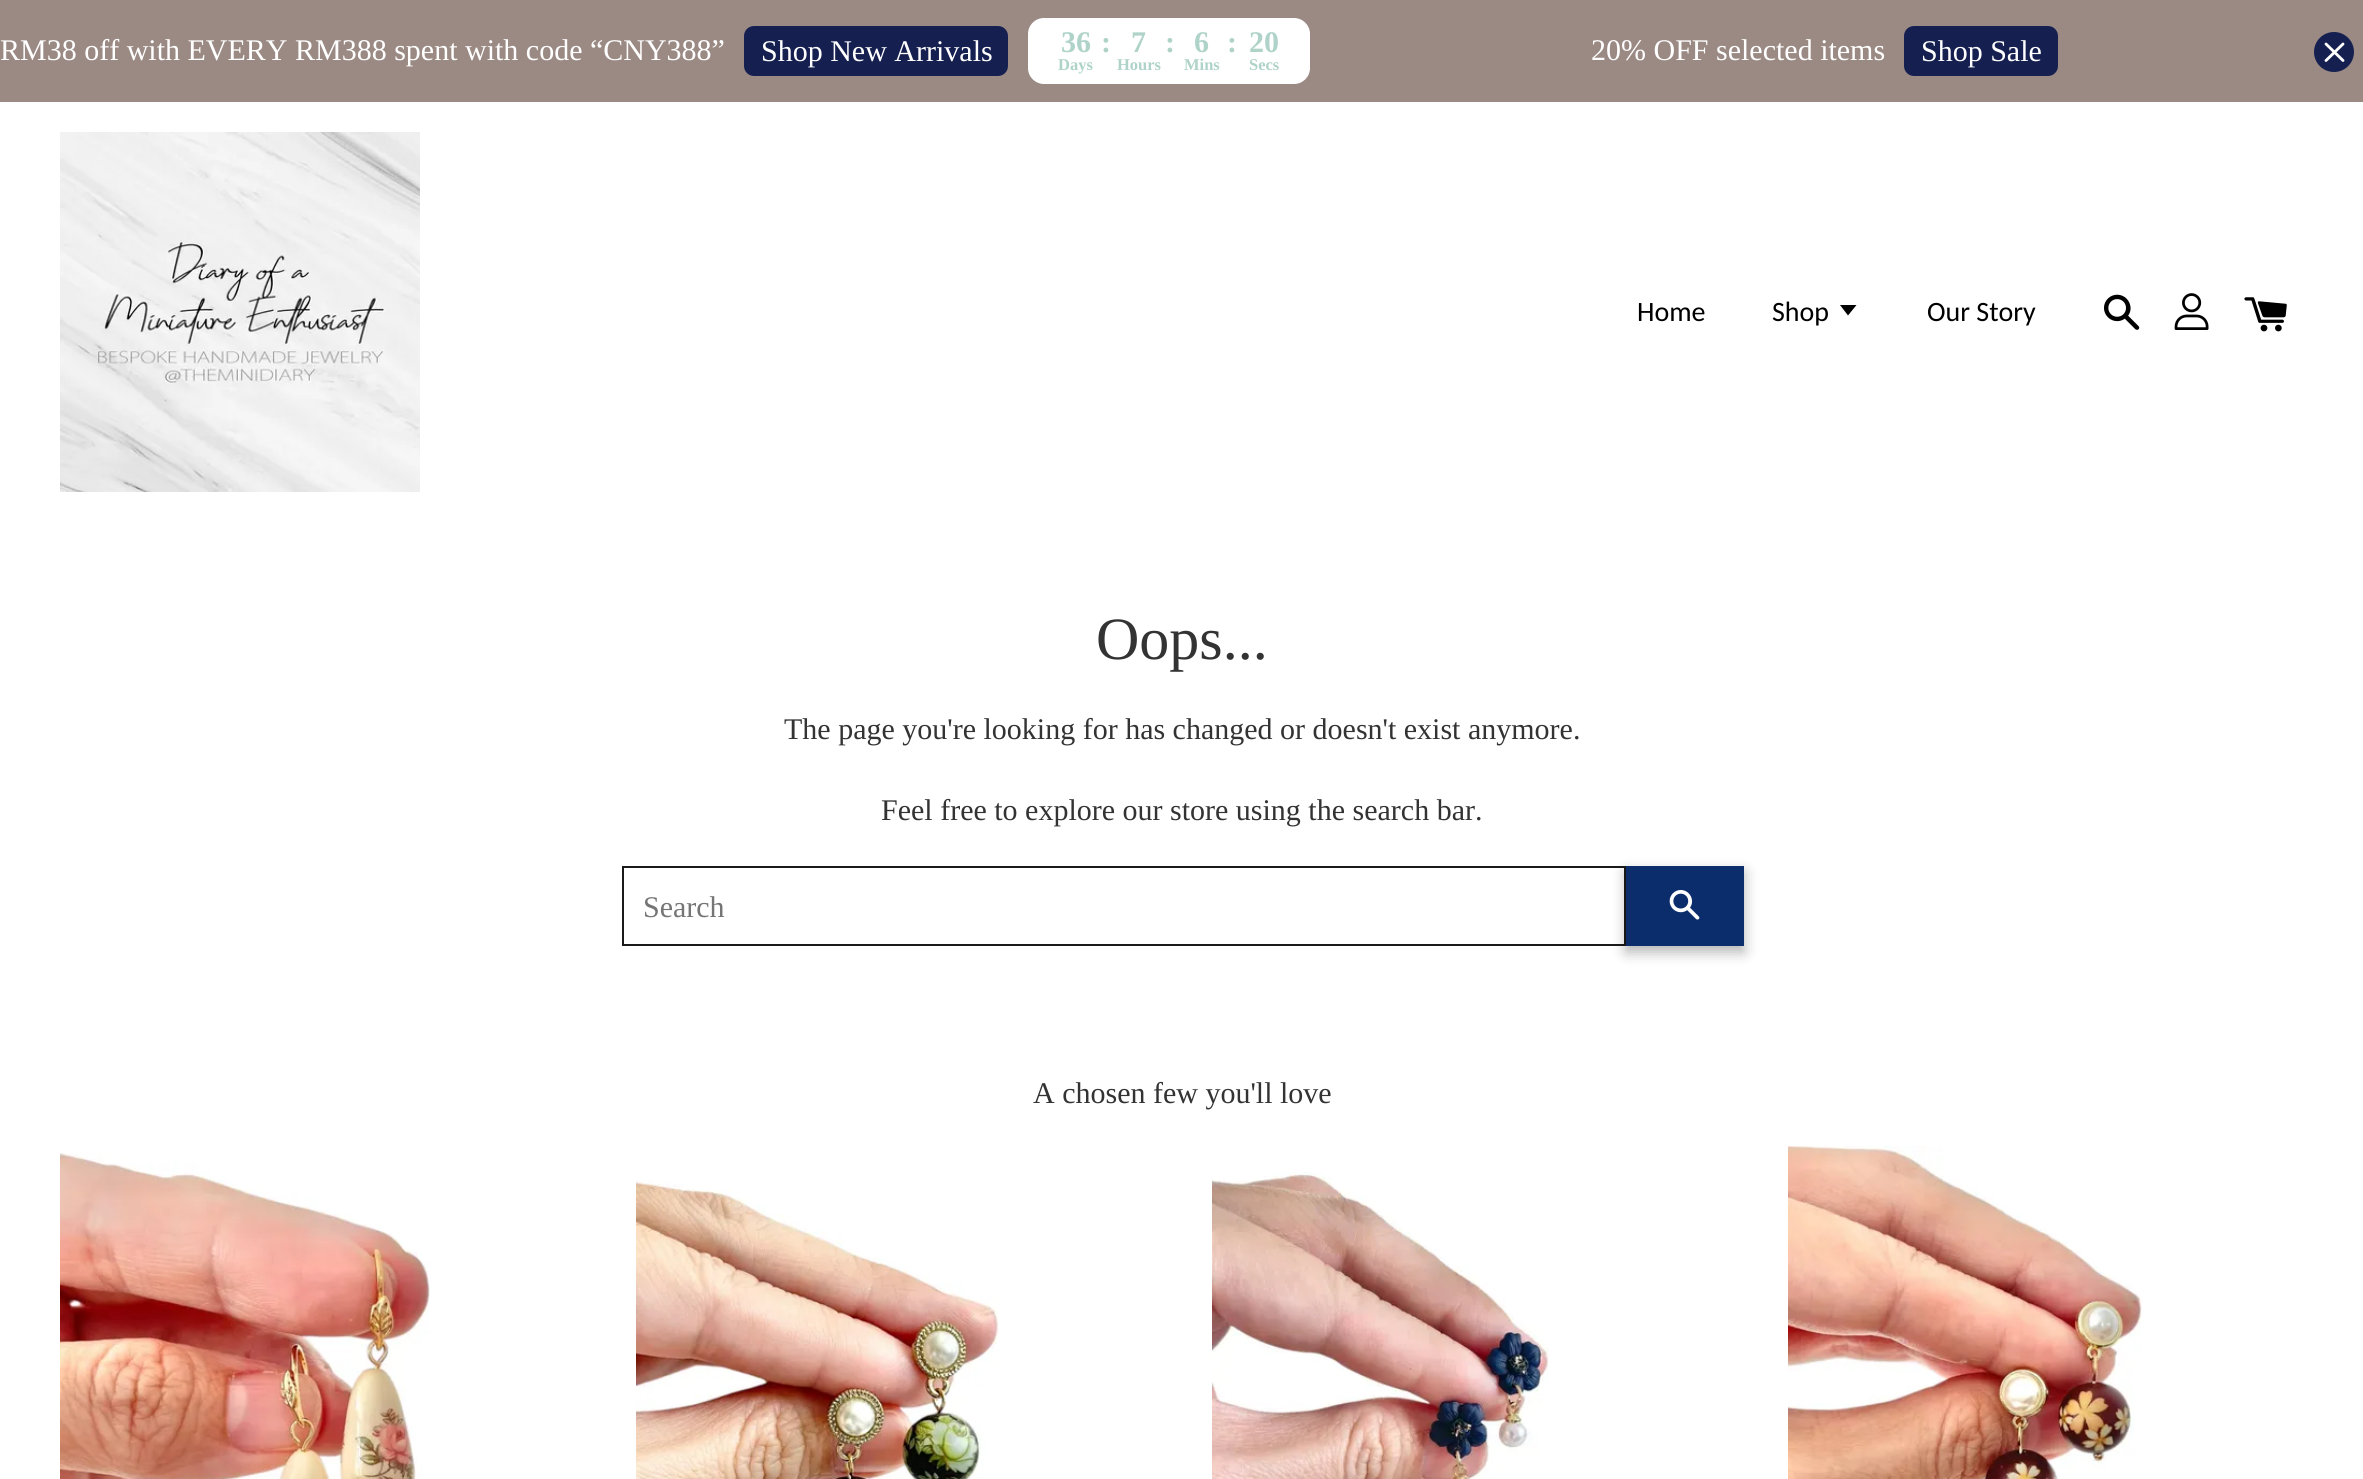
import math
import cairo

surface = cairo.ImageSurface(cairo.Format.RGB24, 2363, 1479)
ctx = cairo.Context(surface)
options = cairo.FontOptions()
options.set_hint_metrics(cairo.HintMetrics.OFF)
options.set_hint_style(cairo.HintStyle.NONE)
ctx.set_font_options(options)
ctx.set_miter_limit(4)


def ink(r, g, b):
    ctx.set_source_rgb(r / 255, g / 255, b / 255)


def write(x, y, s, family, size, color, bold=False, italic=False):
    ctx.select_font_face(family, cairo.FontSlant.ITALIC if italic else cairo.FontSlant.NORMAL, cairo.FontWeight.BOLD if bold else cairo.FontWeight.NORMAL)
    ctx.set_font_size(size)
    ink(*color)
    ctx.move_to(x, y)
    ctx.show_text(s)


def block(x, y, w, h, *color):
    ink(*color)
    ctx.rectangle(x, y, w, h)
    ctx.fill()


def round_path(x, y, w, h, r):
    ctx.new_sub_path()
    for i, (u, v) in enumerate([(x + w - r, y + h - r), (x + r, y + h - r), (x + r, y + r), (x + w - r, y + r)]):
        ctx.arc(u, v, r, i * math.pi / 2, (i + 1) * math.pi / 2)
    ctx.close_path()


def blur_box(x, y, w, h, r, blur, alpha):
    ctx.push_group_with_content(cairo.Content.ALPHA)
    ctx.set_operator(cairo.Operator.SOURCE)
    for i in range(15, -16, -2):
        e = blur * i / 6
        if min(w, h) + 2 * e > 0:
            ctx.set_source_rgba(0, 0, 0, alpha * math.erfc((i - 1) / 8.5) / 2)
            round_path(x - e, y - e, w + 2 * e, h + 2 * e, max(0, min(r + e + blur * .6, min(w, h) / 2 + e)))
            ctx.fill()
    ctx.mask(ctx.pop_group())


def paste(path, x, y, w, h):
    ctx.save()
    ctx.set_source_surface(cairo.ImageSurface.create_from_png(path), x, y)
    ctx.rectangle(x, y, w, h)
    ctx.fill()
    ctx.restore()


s1 = dict(family="Liberation Serif", size=30, color=(255, 255, 255))
s2 = dict(family="Liberation Serif", size=30, color=(175, 211, 200), bold=True)
s3 = dict(family="Liberation Serif", size=16.5, color=(175, 211, 200), bold=True)
s4 = dict(family="Carlito", size=28, color=(0, 0, 0))
s5 = dict(family="Liberation Serif", size=60, color=(51, 51, 51))
s6 = dict(family="Liberation Serif", size=30, color=(51, 51, 51))
s7 = dict(family="Liberation Serif", size=30, color=(117, 117, 117))

ink(255, 255, 255)
ctx.paint()
block(0, 0, 2363, 102, 155, 138, 132)
write(0, 60, "RM38 off with EVERY RM388 spent with code “CNY388”", **s1)
ink(22, 32, 80)
round_path(744, 26, 264, 50, 10)
ctx.fill()
write(761, 61, "Shop New Arrivals", **s1)
round_path(1028, 18, 282, 66, 16)
ctx.fill()
write(1061, 52, "36", **s2)
write(1101, 52, ":", **s2)
write(1058, 70, "Days", **s3)
write(1131, 52, "7", **s2)
write(1165, 52, ":", **s2)
write(1117, 70, "Hours", **s3)
write(1194, 52, "6", **s2)
write(1227, 52, ":", **s2)
write(1184, 70, "Mins", **s3)
write(1249, 52, "20", **s2)
write(1249, 70, "Secs", **s3)
write(1591, 60, "20% OFF selected items", **s1)
ink(22, 32, 80)
round_path(1904, 26, 154, 50, 10)
ctx.fill()
write(1921, 61, "Shop Sale", **s1)
ink(22, 32, 80)
ctx.new_path()
ctx.arc(2334, 52, 20, 0, 2 * math.pi)
ctx.fill()
ctx.new_path()
ctx.move_to(2343, 44)
ctx.line_to(2326, 60.5)
ctx.move_to(2326, 44)
ctx.line_to(2343, 60.5)
ink(255, 255, 255)
ctx.set_line_width(2.8)
ctx.set_line_cap(cairo.LineCap.ROUND)
ctx.set_line_join(cairo.LineJoin.ROUND)
ctx.stroke()
paste("pic1.png", 60, 132, 360, 360)
write(1637, 321, "Home", **s4)
write(1772, 321, "Shop", **s4)
ctx.new_path()
ctx.move_to(1840, 305)
ctx.line_to(1848, 315.5)
ctx.line_to(1856.5, 305)
ctx.close_path()
ctx.fill()
write(1927, 321, "Our Story", **s4)
paste("pic2.png", 2104, 294, 36, 36)
paste("pic3.png", 2174, 293, 35, 37)
paste("pic4.png", 2244, 297, 43, 35)
write(1096, 659, "Oops...", **s5)
write(784, 739, "The page you're looking for has changed or doesn't exist anymore.", **s6)
write(881, 820, "Feel free to explore our store using the search bar.", **s6)
ctx.rectangle(623, 867, 1002, 78)
ink(26, 26, 26)
ctx.set_line_width(2)
ctx.set_line_cap(cairo.LineCap.BUTT)
ctx.set_line_join(cairo.LineJoin.MITER)
ctx.stroke()
write(643, 917, "Search", **s7)
ink(0, 0, 0)
blur_box(1626, 872, 118, 80, 0, 7, 0.3)
block(1626, 866, 118, 80, 11, 45, 108)
paste("pic5.png", 1669, 890, 31, 30)
write(1033, 1103, "A chosen few you'll love", **s6)
paste("pic6.png", 60, 1153, 370, 326)
paste("pic7.png", 636, 1180, 363, 299)
paste("pic8.png", 1212, 1172, 337, 307)
paste("pic9.png", 1788, 1146, 354, 333)
surface.write_to_png("screenshot.png")
